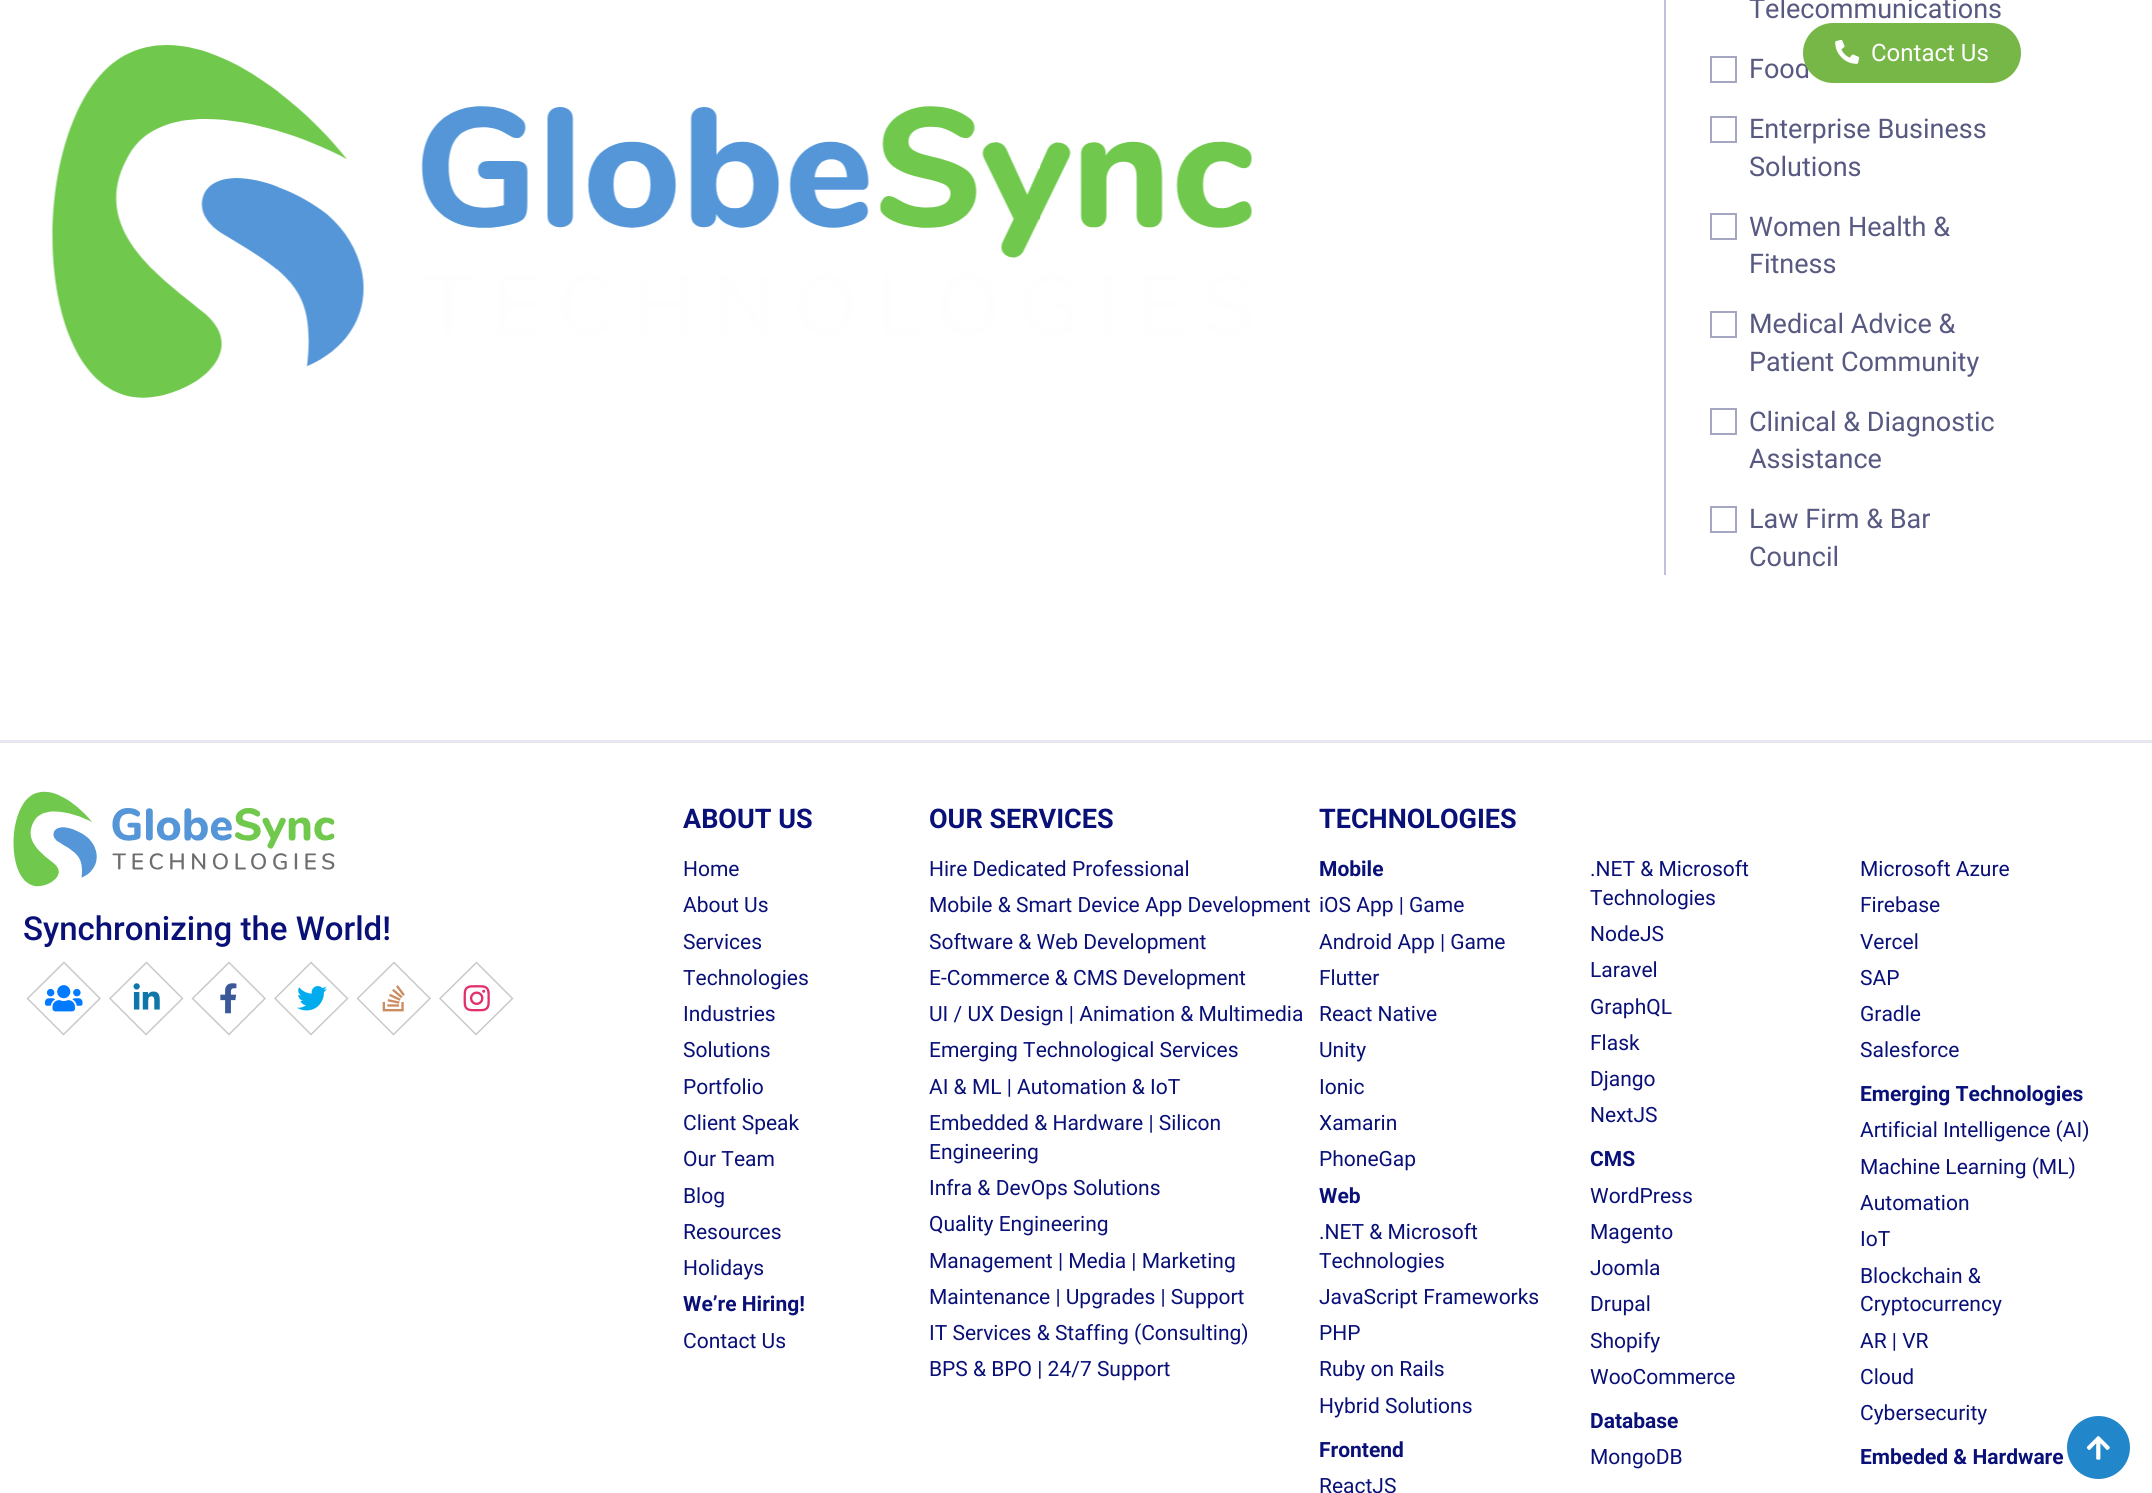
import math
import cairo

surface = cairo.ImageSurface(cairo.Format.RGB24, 2152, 1493)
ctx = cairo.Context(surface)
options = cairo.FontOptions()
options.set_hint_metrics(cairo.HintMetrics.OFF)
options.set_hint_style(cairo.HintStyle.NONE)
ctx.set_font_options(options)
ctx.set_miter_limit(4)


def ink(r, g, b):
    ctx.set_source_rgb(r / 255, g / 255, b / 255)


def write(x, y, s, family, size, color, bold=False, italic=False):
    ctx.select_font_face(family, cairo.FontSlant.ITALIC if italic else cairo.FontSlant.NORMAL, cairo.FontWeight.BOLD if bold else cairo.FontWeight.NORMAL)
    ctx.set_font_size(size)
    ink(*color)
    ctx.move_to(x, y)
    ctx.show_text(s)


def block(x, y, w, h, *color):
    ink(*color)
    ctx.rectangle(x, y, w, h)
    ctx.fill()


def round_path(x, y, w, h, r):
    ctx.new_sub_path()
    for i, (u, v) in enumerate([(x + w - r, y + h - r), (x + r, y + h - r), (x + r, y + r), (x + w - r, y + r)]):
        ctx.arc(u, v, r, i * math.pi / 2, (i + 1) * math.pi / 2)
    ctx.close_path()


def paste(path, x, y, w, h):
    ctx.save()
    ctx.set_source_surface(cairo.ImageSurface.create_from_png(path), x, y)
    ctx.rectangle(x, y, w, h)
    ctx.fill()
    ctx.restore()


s1 = dict(family="Roboto", size=27, color=(87, 89, 129))
s2 = dict(family="Roboto", size=24, color=(255, 255, 255))
s3 = dict(family="Roboto Medium", size=33, color=(9, 16, 119))
s4 = dict(family="Roboto", size=27, color=(9, 16, 119), bold=True)
s5 = dict(family="Roboto", size=21, color=(9, 16, 119))
s6 = dict(family="Roboto", size=21, color=(9, 16, 119), bold=True)

ink(255, 255, 255)
ctx.paint()
block(1664, 0, 2, 575, 192, 193, 220)
write(1749, 18, "Telecommunications", **s1)
ctx.rectangle(1711, 57, 25, 25)
ink(164, 166, 194)
ctx.stroke()
write(1749, 78, "Food", **s1)
ctx.rectangle(1711, 117, 25, 25)
ink(164, 166, 194)
ctx.stroke()
write(1749, 138, "Enterprise Business", **s1)
write(1749, 176, "Solutions", **s1)
ctx.rectangle(1711, 214, 25, 25)
ink(164, 166, 194)
ctx.stroke()
write(1749, 236, "Women Health &", **s1)
write(1749, 273, "Fitness", **s1)
ctx.rectangle(1711, 312, 25, 25)
ink(164, 166, 194)
ctx.stroke()
write(1749, 333, "Medical Advice &", **s1)
write(1749, 371, "Patient Community", **s1)
ctx.rectangle(1711, 409, 25, 25)
ink(164, 166, 194)
ctx.stroke()
write(1749, 431, "Clinical & Diagnostic", **s1)
write(1749, 468, "Assistance", **s1)
ctx.rectangle(1711, 507, 25, 25)
ink(164, 166, 194)
ctx.stroke()
write(1749, 528, "Law Firm & Bar", **s1)
write(1749, 566, "Council", **s1)
paste("pic1.png", 51, 45, 1202, 353)
ink(118, 183, 72)
round_path(1804, 24, 216, 58, 29)
ctx.fill_preserve()
ctx.stroke()
paste("pic2.png", 1835, 39, 25, 25)
write(1871, 61, "Contact Us", **s2)
block(0, 740, 2152, 3, 230, 231, 240)
paste("pic3.png", 13, 791, 322, 96)
write(23, 940, "Synchronizing the World!", **s3)
ctx.new_path()
ctx.move_to(64, 962.5)
ctx.line_to(100, 998.5)
ctx.line_to(63.5, 1034.5)
ctx.line_to(27.5, 998.5)
ctx.close_path()
ink(201, 201, 201)
ctx.set_line_width(1.5)
ctx.stroke()
paste("pic4.png", 45, 985, 38, 27)
ctx.new_path()
ctx.move_to(146.5, 962.5)
ctx.line_to(182.5, 998.5)
ctx.line_to(146, 1034.5)
ctx.line_to(110, 998.5)
ctx.close_path()
ctx.stroke()
paste("pic5.png", 133, 983, 27, 27)
ctx.new_path()
ctx.move_to(229, 962.5)
ctx.line_to(265, 998.5)
ctx.line_to(229, 1034.5)
ctx.line_to(192.5, 998.5)
ctx.close_path()
ctx.stroke()
paste("pic6.png", 220, 983, 17, 31)
ctx.new_path()
ctx.move_to(311, 962.5)
ctx.line_to(347.5, 998.5)
ctx.line_to(311, 1034.5)
ctx.line_to(275, 998.5)
ctx.close_path()
ctx.stroke()
paste("pic7.png", 297, 986, 30, 25)
ctx.new_path()
ctx.move_to(394, 962.5)
ctx.line_to(430, 998.5)
ctx.line_to(393.5, 1034.5)
ctx.line_to(357.5, 998.5)
ctx.close_path()
ctx.stroke()
paste("pic8.png", 382, 985, 23, 27)
ctx.new_path()
ctx.move_to(476.5, 962.5)
ctx.line_to(512.5, 998.5)
ctx.line_to(476, 1034.5)
ctx.line_to(440, 998.5)
ctx.close_path()
ctx.stroke()
paste("pic9.png", 463, 985, 27, 27)
write(683, 828, "ABOUT US", **s4)
write(683, 876, "Home", **s5)
write(683, 912, "About Us", **s5)
write(683, 949, "Services", **s5)
write(683, 985, "Technologies", **s5)
write(683, 1021, "Industries", **s5)
write(683, 1057, "Solutions", **s5)
write(683, 1094, "Portfolio", **s5)
write(683, 1130, "Client Speak", **s5)
write(683, 1166, "Our Team", **s5)
write(683, 1203, "Blog", **s5)
write(683, 1239, "Resources", **s5)
write(683, 1275, "Holidays", **s5)
write(683, 1311, "We’re Hiring!", **s6)
write(683, 1348, "Contact Us", **s5)
write(929, 828, "OUR SERVICES", **s4)
write(929, 876, "Hire Dedicated Professional", **s5)
write(929, 912, "Mobile & Smart Device App Development", **s5)
write(929, 949, "Software & Web Development", **s5)
write(929, 985, "E-Commerce & CMS Development", **s5)
write(929, 1021, "UI / UX Design | Animation & Multimedia", **s5)
write(929, 1057, "Emerging Technological Services", **s5)
write(929, 1094, "AI & ML | Automation & IoT", **s5)
write(929, 1130, "Embedded & Hardware | Silicon", **s5)
write(929, 1159, "Engineering", **s5)
write(929, 1195, "Infra & DevOps Solutions", **s5)
write(929, 1231, "Quality Engineering", **s5)
write(929, 1268, "Management | Media | Marketing", **s5)
write(929, 1304, "Maintenance | Upgrades | Support", **s5)
write(929, 1340, "IT Services & Staffing (Consulting)", **s5)
write(929, 1376, "BPS & BPO | 24/7 Support", **s5)
write(1319, 828, "TECHNOLOGIES", **s4)
write(1319, 876, "Mobile", **s6)
write(1590, 876, ".NET & Microsoft", **s5)
write(1590, 905, "Technologies", **s5)
write(1860, 876, "Microsoft Azure", **s5)
write(1319, 912, "iOS App | Game", **s5)
write(1860, 912, "Firebase", **s5)
write(1319, 949, "Android App | Game", **s5)
write(1590, 941, "NodeJS", **s5)
write(1860, 949, "Vercel", **s5)
write(1319, 985, "Flutter", **s5)
write(1590, 977, "Laravel", **s5)
write(1860, 985, "SAP", **s5)
write(1319, 1021, "React Native", **s5)
write(1590, 1014, "GraphQL", **s5)
write(1860, 1021, "Gradle", **s5)
write(1319, 1057, "Unity", **s5)
write(1590, 1050, "Flask", **s5)
write(1860, 1057, "Salesforce", **s5)
write(1319, 1094, "Ionic", **s5)
write(1590, 1086, "Django", **s5)
write(1860, 1101, "Emerging Technologies", **s6)
write(1319, 1130, "Xamarin", **s5)
write(1590, 1122, "NextJS", **s5)
write(1860, 1137, "Artificial Intelligence (AI)", **s5)
write(1319, 1166, "PhoneGap", **s5)
write(1590, 1166, "CMS", **s6)
write(1860, 1174, "Machine Learning (ML)", **s5)
write(1319, 1203, "Web", **s6)
write(1590, 1203, "WordPress", **s5)
write(1860, 1210, "Automation", **s5)
write(1319, 1239, ".NET & Microsoft", **s5)
write(1319, 1268, "Technologies", **s5)
write(1590, 1239, "Magento", **s5)
write(1860, 1246, "IoT", **s5)
write(1319, 1304, "JavaScript Frameworks", **s5)
write(1590, 1275, "Joomla", **s5)
write(1860, 1283, "Blockchain &", **s5)
write(1860, 1311, "Cryptocurrency", **s5)
write(1590, 1311, "Drupal", **s5)
write(1319, 1340, "PHP", **s5)
write(1590, 1348, "Shopify", **s5)
write(1860, 1348, "AR | VR", **s5)
write(1319, 1376, "Ruby on Rails", **s5)
write(1590, 1384, "WooCommerce", **s5)
write(1860, 1384, "Cloud", **s5)
write(1319, 1413, "Hybrid Solutions", **s5)
write(1590, 1428, "Database", **s6)
write(1860, 1420, "Cybersecurity", **s5)
write(1319, 1457, "Frontend", **s6)
write(1590, 1464, "MongoDB", **s5)
write(1860, 1464, "Embeded & Hardware", **s6)
write(1319, 1493, "ReactJS", **s5)
ink(33, 134, 202)
ctx.new_path()
ctx.arc(2098.5, 1447.5, 31.5, 0, 2 * math.pi)
ctx.fill()
paste("pic10.png", 2086, 1436, 24, 24)
surface.write_to_png("screenshot.png")
